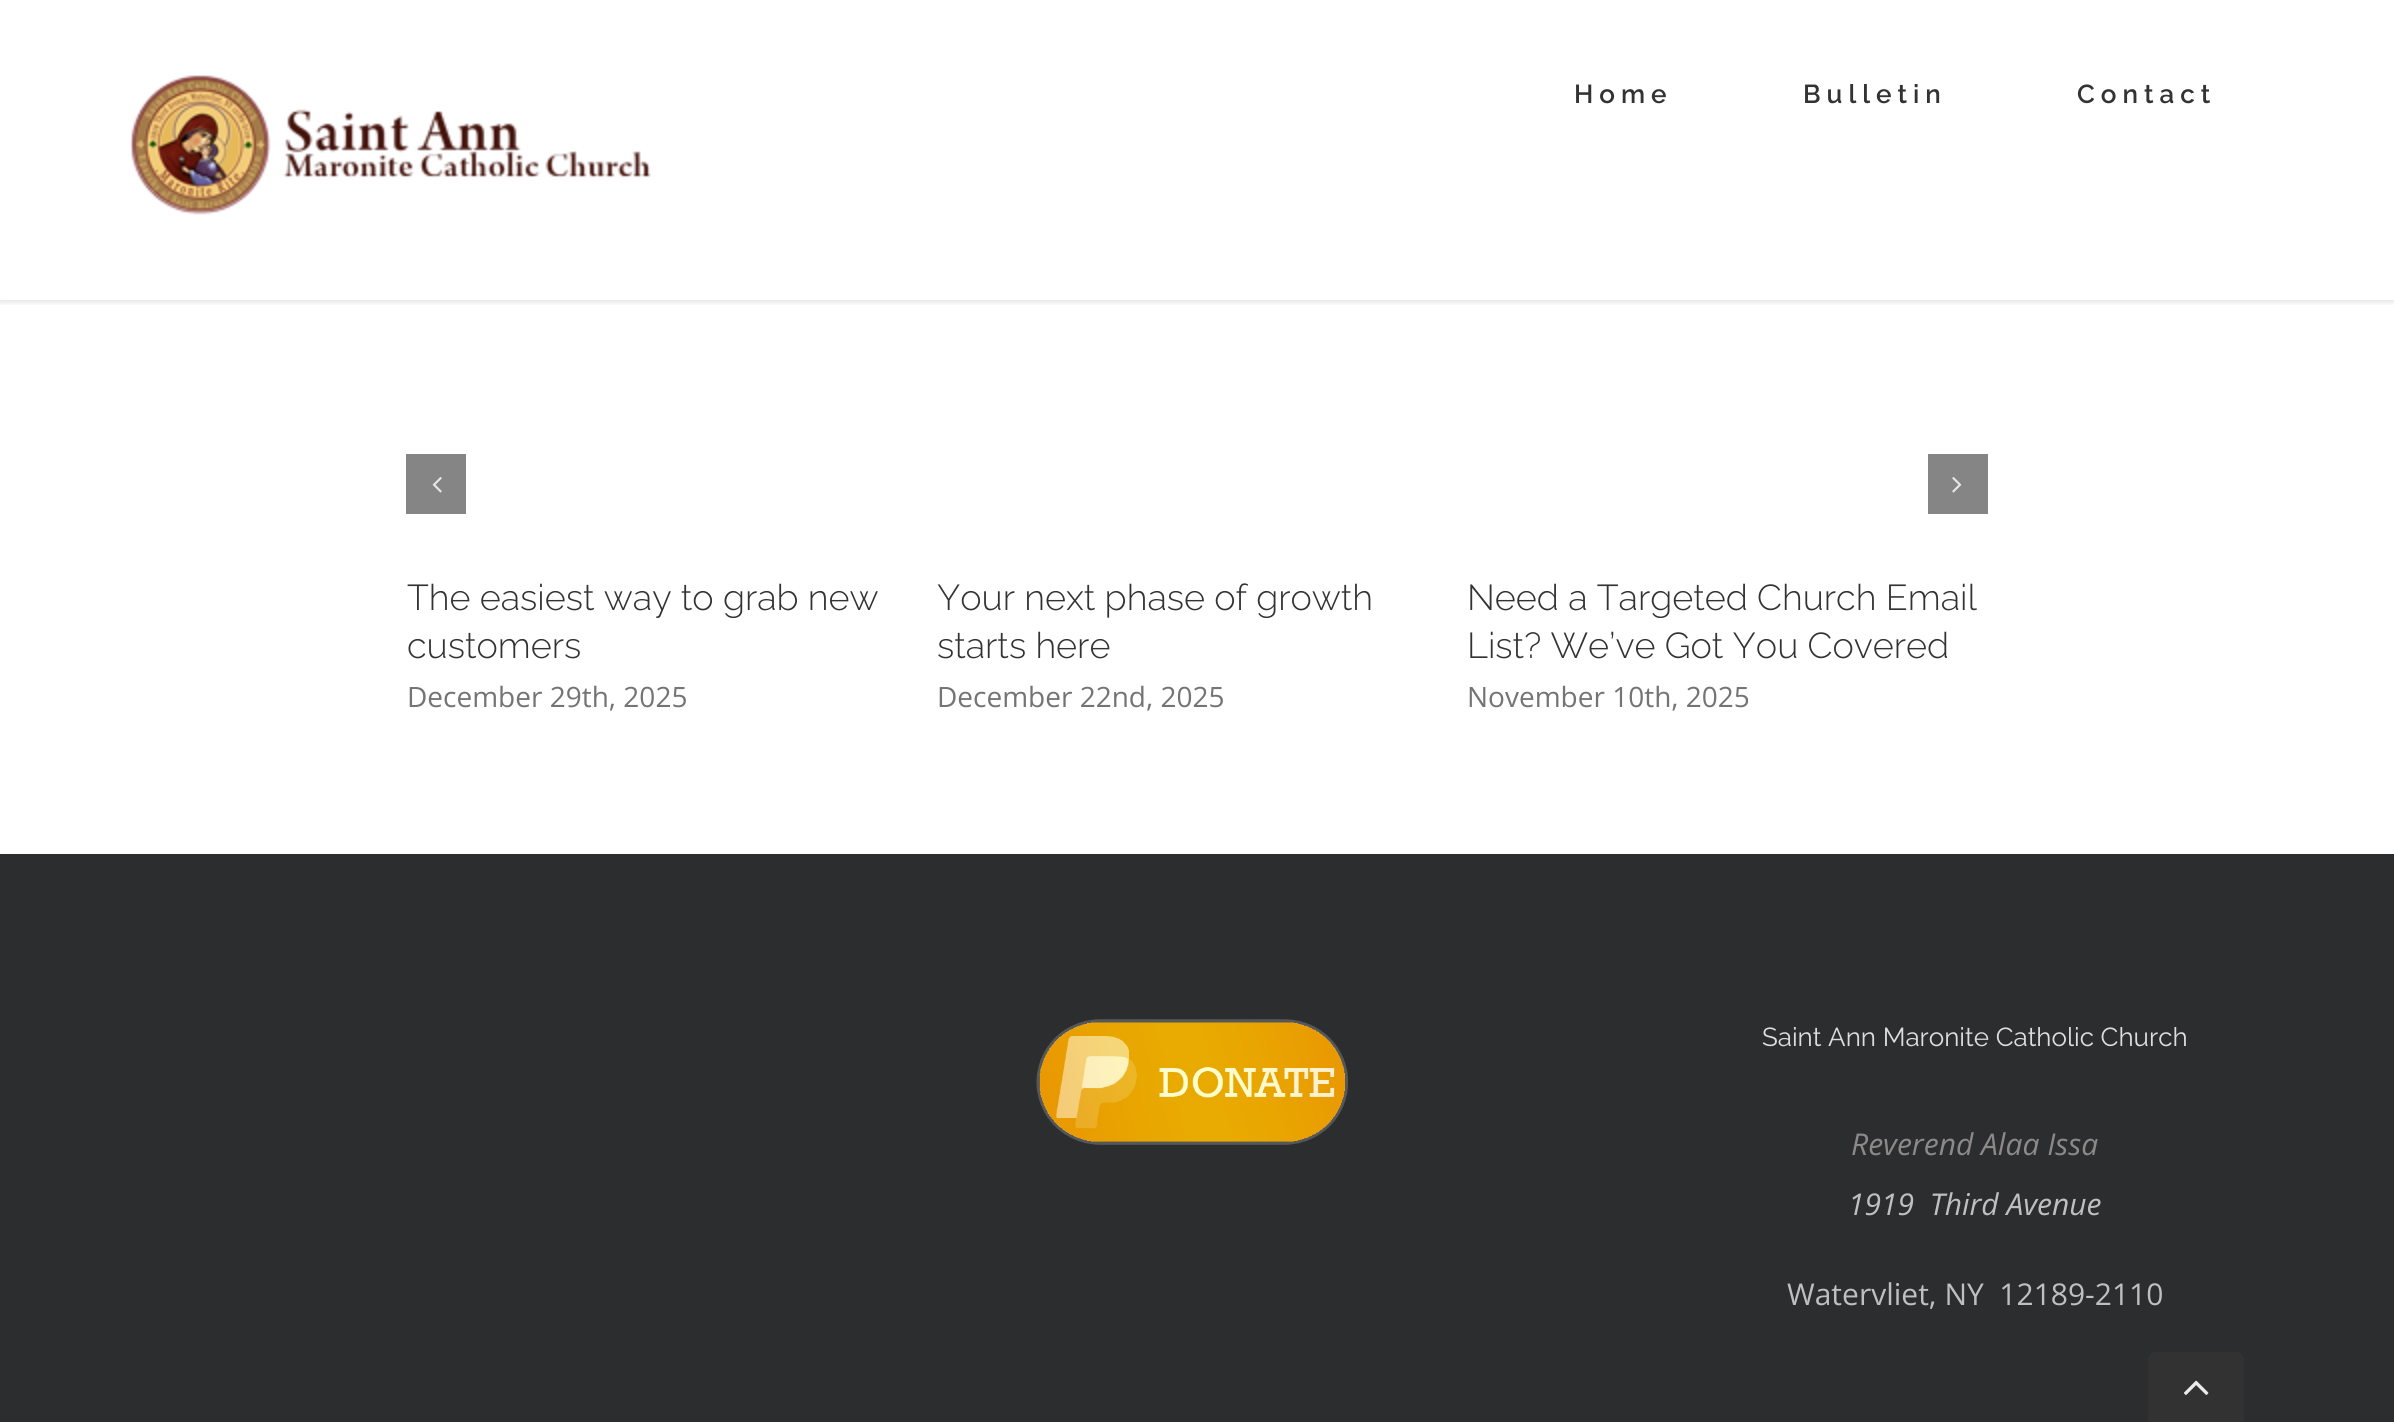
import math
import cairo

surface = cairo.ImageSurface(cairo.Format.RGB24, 2394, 1422)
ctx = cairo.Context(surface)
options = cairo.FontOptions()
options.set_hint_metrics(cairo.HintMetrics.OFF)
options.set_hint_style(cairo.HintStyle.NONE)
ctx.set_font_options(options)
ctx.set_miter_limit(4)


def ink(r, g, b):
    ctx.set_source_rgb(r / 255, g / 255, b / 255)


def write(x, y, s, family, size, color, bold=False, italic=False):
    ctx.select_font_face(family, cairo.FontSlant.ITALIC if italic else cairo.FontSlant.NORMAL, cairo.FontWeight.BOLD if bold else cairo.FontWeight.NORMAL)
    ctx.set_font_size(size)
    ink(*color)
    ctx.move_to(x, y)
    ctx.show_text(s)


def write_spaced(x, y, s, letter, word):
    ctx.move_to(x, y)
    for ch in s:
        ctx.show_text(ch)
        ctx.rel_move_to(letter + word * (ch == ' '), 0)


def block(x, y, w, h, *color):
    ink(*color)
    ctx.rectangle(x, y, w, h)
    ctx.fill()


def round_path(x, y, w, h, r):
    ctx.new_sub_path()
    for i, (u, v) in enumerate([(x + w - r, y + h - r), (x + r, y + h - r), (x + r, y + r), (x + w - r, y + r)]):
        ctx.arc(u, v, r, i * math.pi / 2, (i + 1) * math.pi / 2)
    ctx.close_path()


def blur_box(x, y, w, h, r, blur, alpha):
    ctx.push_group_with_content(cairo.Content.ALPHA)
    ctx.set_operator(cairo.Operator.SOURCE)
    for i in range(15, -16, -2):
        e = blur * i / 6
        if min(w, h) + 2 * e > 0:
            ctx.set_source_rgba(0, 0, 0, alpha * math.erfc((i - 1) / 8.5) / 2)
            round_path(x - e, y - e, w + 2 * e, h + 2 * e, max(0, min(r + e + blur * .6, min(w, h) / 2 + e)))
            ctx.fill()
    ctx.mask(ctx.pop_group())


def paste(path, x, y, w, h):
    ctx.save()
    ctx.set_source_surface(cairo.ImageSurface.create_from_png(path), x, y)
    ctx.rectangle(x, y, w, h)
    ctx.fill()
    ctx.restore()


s1 = dict(family="Raleway Light", size=36, color=(51, 51, 51))
s2 = dict(family="Open Sans", size=28, color=(116, 116, 116))
s3 = dict(family="Raleway", size=26, color=(221, 221, 221))
s4 = dict(family="Open Sans", size=30, color=(140, 137, 137), italic=True)
s5 = dict(family="Open Sans", size=30, color=(191, 191, 191), italic=True)
s6 = dict(family="Open Sans", size=30, color=(191, 191, 191))

ink(255, 255, 255)
ctx.paint()
ctx.save()
ctx.rectangle(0, 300, 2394, 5)
ctx.clip()
ink(0, 0, 0)
blur_box(0, 2, 2394, 300, 0, 3, 0.12)
ctx.restore()
paste("pic1.png", 130, 75, 521, 140)
ctx.select_font_face("Raleway SemiBold")
ctx.set_font_size(26)
ink(51, 51, 51)
write_spaced(1574, 103, "Home", 6, 0)
write_spaced(1803, 103, "Bulletin", 6, 0)
write_spaced(2077, 103, "Contact", 6, 0)
block(406, 454, 60, 60, 133, 133, 133)
paste("pic2.png", 432, 477, 10, 16)
block(1928, 454, 60, 60, 133, 133, 133)
paste("pic3.png", 1952, 477, 10, 16)
write(407, 610, "The easiest way to grab new", **s1)
write(407, 658, "customers", **s1)
write(407, 707, "December 29th, 2025", **s2)
write(937, 610, "Your next phase of growth", **s1)
write(937, 658, "starts here", **s1)
write(937, 707, "December 22nd, 2025", **s2)
write(1467, 610, "Need a Targeted Church Email", **s1)
write(1467, 658, "List? We’ve Got You Covered", **s1)
write(1467, 707, "November 10th, 2025", **s2)
block(0, 854, 2394, 568, 44, 45, 47)
paste("pic4.png", 1036, 1019, 312, 126)
write(1762, 1046, "Saint Ann Maronite Catholic Church", **s3)
write(1851, 1155, "Reverend Alaa Issa", **s4)
write(1848, 1215, "1919  Third Avenue", **s5)
write(1787, 1305, "Watervliet, NY  12189-2110", **s6)
ink(50, 50, 51)
ctx.new_path()
ctx.move_to(2156, 1352)
ctx.line_to(2236, 1352)
ctx.curve_to(2240.5, 1352, 2244, 1355.5, 2244, 1360)
ctx.line_to(2244, 1422)
ctx.line_to(2148, 1422)
ctx.line_to(2148, 1360)
ctx.curve_to(2148, 1355.5, 2151.5, 1352, 2156, 1352)
ctx.close_path()
ctx.fill()
paste("pic5.png", 2184, 1380, 25, 15)
surface.write_to_png("screenshot.png")
